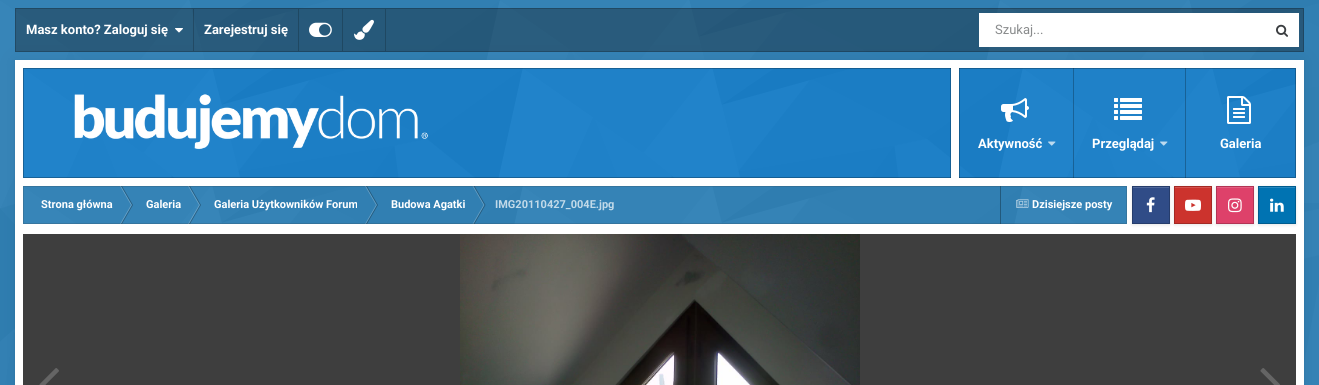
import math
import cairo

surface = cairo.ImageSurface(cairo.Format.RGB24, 1319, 385)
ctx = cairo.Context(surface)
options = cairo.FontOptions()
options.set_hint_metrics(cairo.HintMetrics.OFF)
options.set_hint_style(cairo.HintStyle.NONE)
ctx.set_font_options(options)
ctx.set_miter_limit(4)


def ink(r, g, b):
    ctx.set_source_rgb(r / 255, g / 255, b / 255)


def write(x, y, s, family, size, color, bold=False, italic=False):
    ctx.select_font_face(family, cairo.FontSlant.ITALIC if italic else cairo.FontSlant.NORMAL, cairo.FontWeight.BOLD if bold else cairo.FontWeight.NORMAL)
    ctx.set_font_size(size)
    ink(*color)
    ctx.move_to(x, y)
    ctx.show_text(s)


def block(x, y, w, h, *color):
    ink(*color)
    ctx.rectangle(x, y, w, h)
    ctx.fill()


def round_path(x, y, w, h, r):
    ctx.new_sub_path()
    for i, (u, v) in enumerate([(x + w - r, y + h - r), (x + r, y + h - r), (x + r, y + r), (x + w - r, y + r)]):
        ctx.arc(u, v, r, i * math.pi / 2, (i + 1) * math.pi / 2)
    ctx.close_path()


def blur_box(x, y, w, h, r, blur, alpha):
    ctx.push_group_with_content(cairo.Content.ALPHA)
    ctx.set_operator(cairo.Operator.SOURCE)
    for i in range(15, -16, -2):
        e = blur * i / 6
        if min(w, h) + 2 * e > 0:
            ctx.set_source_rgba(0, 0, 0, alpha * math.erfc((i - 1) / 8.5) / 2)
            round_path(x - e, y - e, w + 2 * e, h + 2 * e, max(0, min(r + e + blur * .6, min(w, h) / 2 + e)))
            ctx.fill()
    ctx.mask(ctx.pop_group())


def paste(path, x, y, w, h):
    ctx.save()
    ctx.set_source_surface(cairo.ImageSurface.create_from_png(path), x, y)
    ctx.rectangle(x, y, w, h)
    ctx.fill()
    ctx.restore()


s1 = dict(family="Roboto", size=13, color=(255, 255, 255), bold=True)
s2 = dict(family="Roboto", size=13, color=(137, 139, 140))
s3 = dict(family="Roboto", size=11, color=(255, 255, 255), bold=True)
s4 = dict(family="Roboto", size=11, color=(194, 218, 233), bold=True)

ink(46, 129, 182)
ctx.paint()
paste("pic1.png", 0, 0, 1319, 385)
ink(0, 0, 0)
blur_box(15, 60, 1289, 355, 0, 10, 0.06)
ctx.set_source_rgba(0.078, 0.078, 0.078, 0.35)
ctx.rectangle(15, 8, 1289, 44)
ctx.fill()
ctx.rectangle(15.5, 8.5, 1288, 43)
ctx.set_source_rgba(0, 0, 0, 0.2)
ctx.set_line_width(1)
ctx.stroke()
ctx.rectangle(193, 9, 1, 42)
ctx.fill()
write(26, 34, "Masz konto? Zaloguj się", **s1)
paste("pic2.png", 175, 28, 8, 5)
block(298, 9, 1, 42, 31, 72, 98)
write(204, 34, "Zarejestruj się", **s1)
block(342, 9, 1, 42, 31, 72, 98)
paste("pic3.png", 309, 22, 23, 15)
block(385, 9, 1, 42, 31, 72, 98)
paste("pic4.png", 354, 19, 20, 21)
block(979, 13, 320, 34, 255, 255, 255)
write(995, 34, "Szukaj...", **s2)
paste("pic5.png", 1276, 24, 12, 13)
ink(0, 0, 0)
blur_box(15, 61, 1289, 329, 0, 1.5, 0.08)
block(15, 60, 1289, 325, 255, 255, 255)
block(23, 68, 1273, 110, 23, 126, 201)
paste("pic6.png", 23, 68, 1273, 110)
ctx.rectangle(23.5, 68.5, 1272, 109)
ctx.set_source_rgba(0, 0, 0, 0.25)
ctx.stroke()
paste("pic7.png", 74, 94, 354, 56)
ctx.rectangle(950, 68, 1, 110)
ctx.fill()
block(951, 68, 8, 110, 255, 255, 255)
ctx.set_source_rgba(0, 0, 0, 0.25)
ctx.rectangle(959, 68, 1, 110)
ctx.fill()
paste("pic8.png", 1001, 98, 28, 24)
write(978, 148, "Aktywność", **s1)
paste("pic9.png", 1048, 141, 8, 5)
ctx.set_source_rgba(0, 0, 0, 0.25)
ctx.rectangle(1073, 68, 1, 110)
ctx.fill()
paste("pic10.png", 1114, 98, 28, 22)
write(1092, 148, "Przeglądaj", **s1)
paste("pic9.png", 1160, 141, 8, 5)
ctx.set_source_rgba(0, 0, 0, 0.25)
ctx.rectangle(1185, 68, 1, 110)
ctx.fill()
paste("pic11.png", 1227, 96, 24, 28)
write(1220, 148, "Galeria", **s1)
block(23, 186, 1104, 38, 46, 129, 182)
paste("pic12.png", 23, 186, 1104, 38)
ink(103, 162, 200)
ctx.new_path()
ctx.move_to(120, 186)
ctx.line_to(121, 186)
ctx.line_to(132, 205)
ctx.line_to(131, 205)
ctx.close_path()
ctx.fill()
ctx.set_source_rgba(0, 0, 0, 0.3)
ctx.new_path()
ctx.move_to(121, 186)
ctx.line_to(122, 186)
ctx.line_to(133, 205)
ctx.line_to(132, 205)
ctx.close_path()
ctx.fill()
ink(103, 162, 200)
ctx.new_path()
ctx.move_to(120, 224)
ctx.line_to(121, 224)
ctx.line_to(132, 205)
ctx.line_to(131, 205)
ctx.close_path()
ctx.fill()
ctx.set_source_rgba(0, 0, 0, 0.3)
ctx.new_path()
ctx.move_to(121, 224)
ctx.line_to(122, 224)
ctx.line_to(133, 205)
ctx.line_to(132, 205)
ctx.close_path()
ctx.fill()
ink(103, 163, 200)
ctx.new_path()
ctx.move_to(188, 186)
ctx.line_to(189, 186)
ctx.line_to(200, 205)
ctx.line_to(199, 205)
ctx.close_path()
ctx.fill()
ctx.set_source_rgba(0, 0, 0, 0.3)
ctx.new_path()
ctx.move_to(189, 186)
ctx.line_to(190, 186)
ctx.line_to(201, 205)
ctx.line_to(200, 205)
ctx.close_path()
ctx.fill()
ink(105, 164, 202)
ctx.new_path()
ctx.move_to(188, 224)
ctx.line_to(189, 224)
ctx.line_to(200, 205)
ctx.line_to(199, 205)
ctx.close_path()
ctx.fill()
ctx.set_source_rgba(0, 0, 0, 0.3)
ctx.new_path()
ctx.move_to(189, 224)
ctx.line_to(190, 224)
ctx.line_to(201, 205)
ctx.line_to(200, 205)
ctx.close_path()
ctx.fill()
ink(100, 159, 197)
ctx.new_path()
ctx.move_to(365, 186)
ctx.line_to(366, 186)
ctx.line_to(377, 205)
ctx.line_to(376, 205)
ctx.close_path()
ctx.fill()
ctx.set_source_rgba(0, 0, 0, 0.3)
ctx.new_path()
ctx.move_to(366, 186)
ctx.line_to(367, 186)
ctx.line_to(378, 205)
ctx.line_to(377, 205)
ctx.close_path()
ctx.fill()
ink(100, 159, 197)
ctx.new_path()
ctx.move_to(365, 224)
ctx.line_to(366, 224)
ctx.line_to(377, 205)
ctx.line_to(376, 205)
ctx.close_path()
ctx.fill()
ctx.set_source_rgba(0, 0, 0, 0.3)
ctx.new_path()
ctx.move_to(366, 224)
ctx.line_to(367, 224)
ctx.line_to(378, 205)
ctx.line_to(377, 205)
ctx.close_path()
ctx.fill()
ink(100, 159, 197)
ctx.new_path()
ctx.move_to(472.5, 186)
ctx.line_to(473.5, 186)
ctx.line_to(484.5, 205)
ctx.line_to(483.5, 205)
ctx.close_path()
ctx.fill()
ctx.set_source_rgba(0, 0, 0, 0.3)
ctx.new_path()
ctx.move_to(473.5, 186)
ctx.line_to(474.5, 186)
ctx.line_to(485.5, 205)
ctx.line_to(484.5, 205)
ctx.close_path()
ctx.fill()
ink(100, 159, 197)
ctx.new_path()
ctx.move_to(472.5, 224)
ctx.line_to(473.5, 224)
ctx.line_to(484.5, 205)
ctx.line_to(483.5, 205)
ctx.close_path()
ctx.fill()
ctx.set_source_rgba(0, 0, 0, 0.3)
ctx.new_path()
ctx.move_to(473.5, 224)
ctx.line_to(474.5, 224)
ctx.line_to(485.5, 205)
ctx.line_to(484.5, 205)
ctx.close_path()
ctx.fill()
block(1000, 186, 1, 38, 34, 89, 124)
paste("pic13.png", 1016, 199, 13, 9)
ctx.rectangle(23.5, 186.5, 1103, 37)
ctx.set_source_rgba(0.227, 0.239, 0.251, 0.2)
ctx.stroke()
write(41, 208, "Strona główna", **s3)
write(146, 208, "Galeria", **s3)
write(214, 208, "Galeria Użytkowników Forum", **s3)
write(391, 208, "Budowa Agatki", **s3)
write(495, 208, "IMG20110427_004E.jpg", **s4)
write(1032, 208, "Dzisiejsze posty", **s3)
ink(0, 0, 0)
blur_box(1132, 187, 38, 38, 0, 1.5, 0.1)
block(1133, 188, 36, 35, 48, 76, 135)
block(1133, 187, 36, 1, 79, 103, 153)
paste("pic14.png", 1146, 197, 9, 16)
ctx.rectangle(1132.5, 186.5, 37, 37)
ink(38, 61, 108)
ctx.stroke()
ink(0, 0, 0)
blur_box(1174, 187, 38, 38, 0, 1.5, 0.1)
block(1175, 188, 36, 35, 204, 51, 45)
block(1175, 187, 36, 1, 212, 82, 77)
paste("pic15.png", 1185, 199, 16, 12)
ctx.rectangle(1174.5, 186.5, 37, 37)
ink(163, 41, 36)
ctx.stroke()
ink(0, 0, 0)
blur_box(1216, 187, 38, 38, 0, 1.5, 0.1)
block(1217, 188, 36, 35, 222, 65, 106)
block(1217, 187, 36, 1, 227, 94, 128)
paste("pic16.png", 1228, 198, 14, 15)
ctx.rectangle(1216.5, 186.5, 37, 37)
ink(178, 52, 85)
ctx.stroke()
ink(0, 0, 0)
blur_box(1258, 187, 38, 38, 0, 1.5, 0.1)
block(1259, 188, 36, 35, 0, 115, 178)
block(1259, 187, 36, 1, 38, 136, 190)
paste("pic17.png", 1270, 198, 14, 14)
ctx.rectangle(1258.5, 186.5, 37, 37)
ink(0, 92, 142)
ctx.stroke()
block(23, 234, 1273, 151, 62, 62, 62)
paste("pic18.png", 460, 234, 400, 151)
paste("pic19.png", 39, 368, 20, 17)
paste("pic20.png", 1260, 368, 20, 17)
surface.write_to_png("screenshot.png")
